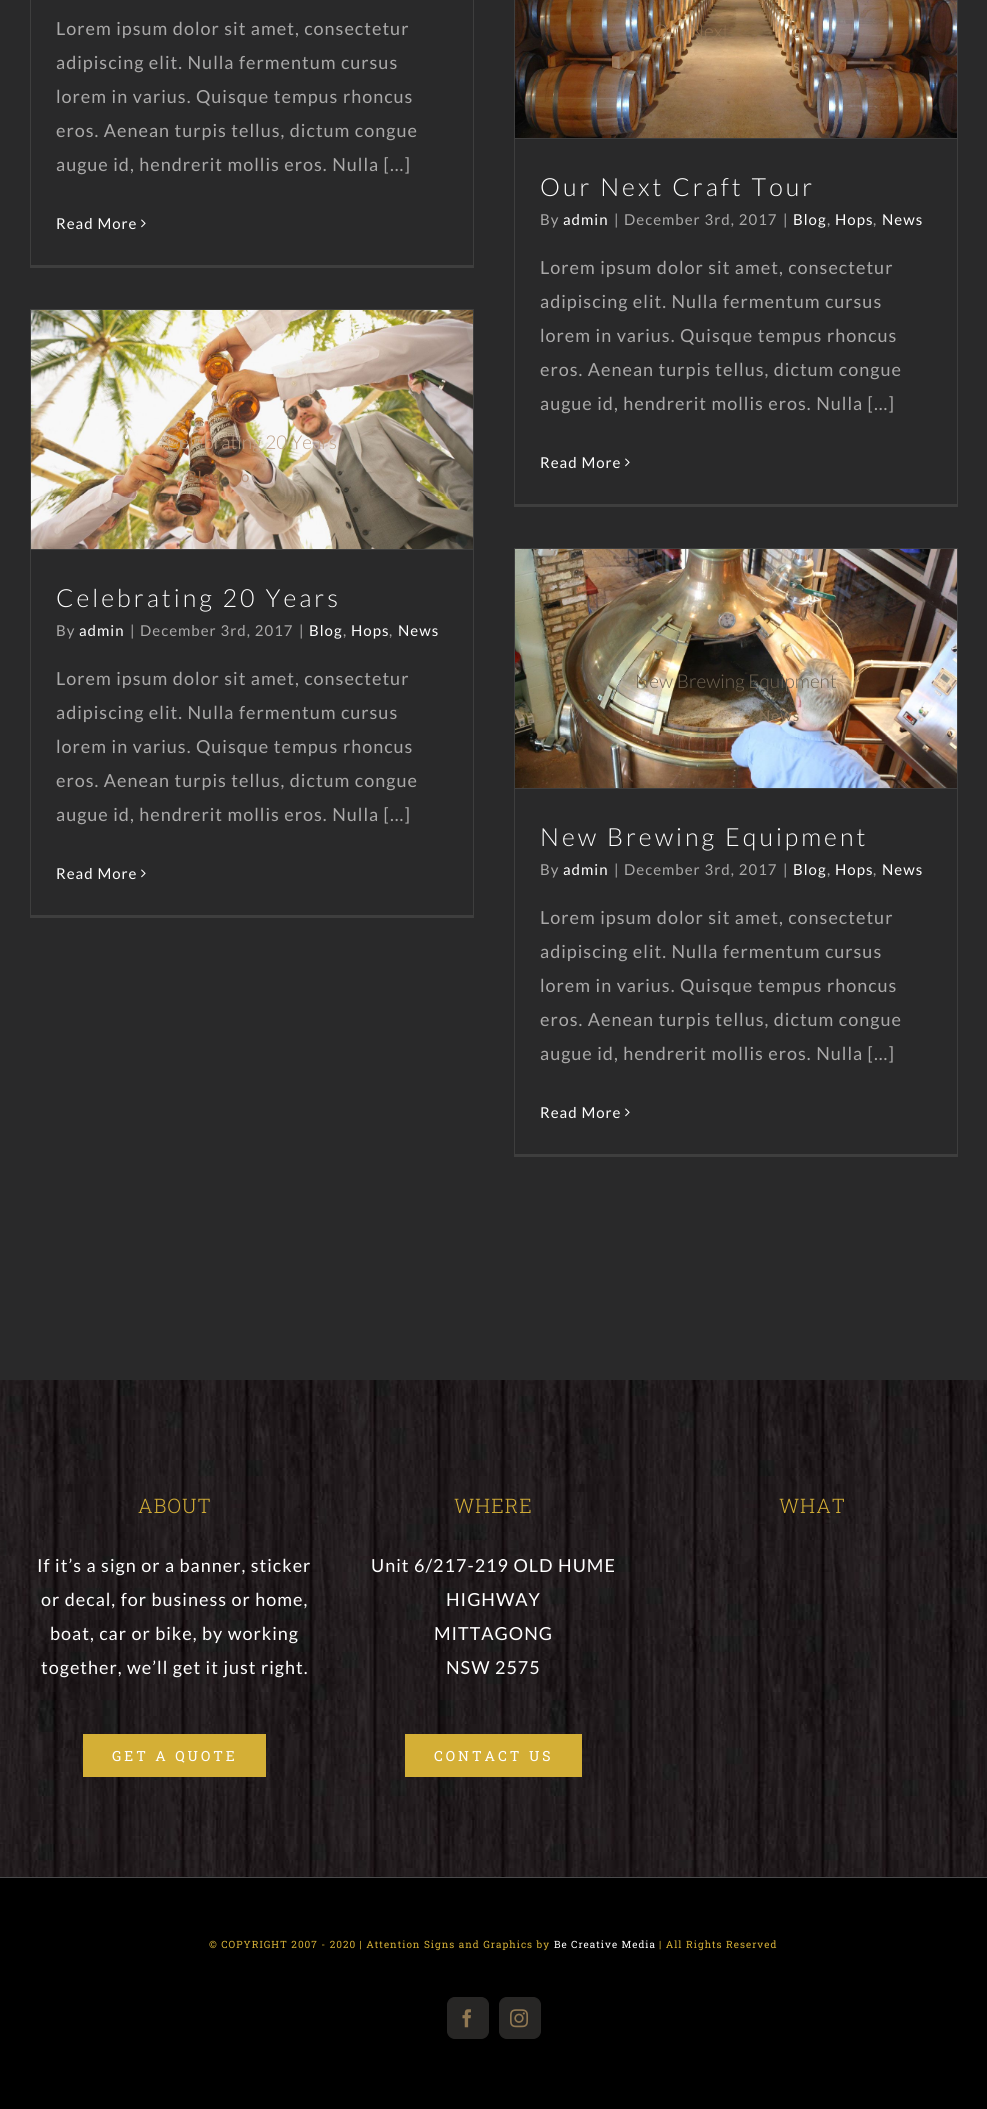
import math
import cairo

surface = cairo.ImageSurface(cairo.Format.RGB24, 987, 2109)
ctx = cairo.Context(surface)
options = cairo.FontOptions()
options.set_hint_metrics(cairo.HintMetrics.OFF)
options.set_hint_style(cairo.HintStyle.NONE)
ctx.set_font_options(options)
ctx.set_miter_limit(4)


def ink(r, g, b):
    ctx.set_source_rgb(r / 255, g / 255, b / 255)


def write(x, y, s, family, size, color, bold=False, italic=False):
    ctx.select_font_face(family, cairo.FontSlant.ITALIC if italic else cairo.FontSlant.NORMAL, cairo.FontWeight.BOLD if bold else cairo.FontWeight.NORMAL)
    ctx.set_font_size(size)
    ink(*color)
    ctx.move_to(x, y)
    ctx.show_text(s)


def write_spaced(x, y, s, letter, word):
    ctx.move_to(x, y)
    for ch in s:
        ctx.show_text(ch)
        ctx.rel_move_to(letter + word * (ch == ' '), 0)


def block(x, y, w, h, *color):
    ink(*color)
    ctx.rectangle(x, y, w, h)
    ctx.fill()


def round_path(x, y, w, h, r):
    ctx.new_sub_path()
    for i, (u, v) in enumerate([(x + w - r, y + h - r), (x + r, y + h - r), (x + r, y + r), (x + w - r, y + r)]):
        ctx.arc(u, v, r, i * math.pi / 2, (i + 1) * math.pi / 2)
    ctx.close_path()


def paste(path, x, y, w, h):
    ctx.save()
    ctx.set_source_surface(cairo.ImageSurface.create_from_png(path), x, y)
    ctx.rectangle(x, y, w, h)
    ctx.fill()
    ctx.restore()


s1 = dict(family="Lato Light", size=19, color=(146, 114, 82))
s2 = dict(family="Lato Light", size=19, color=(189, 161, 135))
s3 = dict(family="Lato Light", size=19, color=(111, 100, 84))

ink(41, 41, 42)
ctx.paint()
block(473, 0, 1, 268, 62, 62, 62)
block(30, 265, 444, 3, 62, 62, 62)
block(30, 0, 1, 268, 62, 62, 62)
ctx.select_font_face("Lato")
ctx.set_font_size(18)
ink(170, 169, 169)
write_spaced(56, 35, "Lorem ipsum dolor sit amet, consectetur", 1, 0)
write_spaced(56, 69, "adipiscing elit. Nulla fermentum cursus", 1, 0)
write_spaced(56, 103, "lorem in varius. Quisque tempus rhoncus", 1, 0)
write_spaced(56, 137, "eros. Aenean turpis tellus, dictum congue", 1, 0)
write_spaced(56, 171, "augue id, hendrerit mollis eros. Nulla [...]", 1, 0)
ctx.set_font_size(15)
ink(255, 255, 255)
write_spaced(56, 229, "Read More", 1, 0)
paste("pic1.png", 141, 219, 5, 9)
block(957, 0, 1, 507, 62, 62, 62)
block(514, 504, 444, 3, 62, 62, 62)
block(514, 0, 1, 507, 62, 62, 62)
block(515, 138, 442, 1, 62, 62, 62)
paste("pic2.png", 515, 0, 442, 138)
write(653, 38, "Our Next", **s1)
write(791, 38, "o", **s1)
ctx.select_font_face("Lato")
ctx.set_font_size(15)
ink(183, 148, 105)
write_spaced(793, 71, "s", 1, 0)
ctx.select_font_face("Lato Light")
ctx.set_font_size(25)
ink(255, 255, 255)
write_spaced(540, 196, "Our Next Craft Tour", 3, 0)
ctx.select_font_face("Lato")
ctx.set_font_size(15)
ink(170, 169, 169)
write_spaced(540, 225, "By", 1, 0)
ink(255, 255, 255)
write_spaced(563, 225, "admin", 1, 0)
ink(170, 169, 169)
write_spaced(614, 225, "|", 1, 0)
write_spaced(624, 225, "December 3rd, 2017", 1, 0)
write_spaced(783, 225, "|", 1, 0)
ink(255, 255, 255)
write_spaced(793, 225, "Blog", 1, 0)
ink(170, 169, 169)
write_spaced(827, 225, ",", 1, 0)
ink(255, 255, 255)
write_spaced(835, 225, "Hops", 1, 0)
ink(170, 169, 169)
write_spaced(873, 225, ",", 1, 0)
ink(255, 255, 255)
write_spaced(882, 225, "News", 1, 0)
ctx.set_font_size(18)
ink(170, 169, 169)
write_spaced(540, 274, "Lorem ipsum dolor sit amet, consectetur", 1, 0)
write_spaced(540, 308, "adipiscing elit. Nulla fermentum cursus", 1, 0)
write_spaced(540, 342, "lorem in varius. Quisque tempus rhoncus", 1, 0)
write_spaced(540, 376, "eros. Aenean turpis tellus, dictum congue", 1, 0)
write_spaced(540, 410, "augue id, hendrerit mollis eros. Nulla [...]", 1, 0)
ctx.set_font_size(15)
ink(255, 255, 255)
write_spaced(540, 468, "Read More", 1, 0)
paste("pic1.png", 625, 458, 5, 9)
block(30, 309, 444, 1, 62, 62, 62)
block(473, 309, 1, 609, 62, 62, 62)
block(30, 915, 444, 3, 62, 62, 62)
block(30, 309, 1, 609, 62, 62, 62)
block(31, 549, 442, 1, 62, 62, 62)
paste("pic3.png", 31, 310, 442, 239)
write(166, 449, "Celebrating 20 Years", **s2)
ctx.select_font_face("Lato")
ctx.set_font_size(15)
ink(150, 105, 73)
write_spaced(187, 482, "Blog", 1, 0)
ink(187, 152, 129)
write_spaced(241, 482, "o", 1, 0)
ctx.select_font_face("Lato Light")
ctx.set_font_size(25)
ink(255, 255, 255)
write_spaced(56, 607, "Celebrating 20 Years", 3, 0)
ctx.select_font_face("Lato")
ctx.set_font_size(15)
ink(170, 169, 169)
write_spaced(56, 636, "By", 1, 0)
ink(255, 255, 255)
write_spaced(79, 636, "admin", 1, 0)
ink(170, 169, 169)
write_spaced(130, 636, "|", 1, 0)
write_spaced(140, 636, "December 3rd, 2017", 1, 0)
write_spaced(299, 636, "|", 1, 0)
ink(255, 255, 255)
write_spaced(309, 636, "Blog", 1, 0)
ink(170, 169, 169)
write_spaced(343, 636, ",", 1, 0)
ink(255, 255, 255)
write_spaced(351, 636, "Hops", 1, 0)
ink(170, 169, 169)
write_spaced(389, 636, ",", 1, 0)
ink(255, 255, 255)
write_spaced(398, 636, "News", 1, 0)
ctx.set_font_size(18)
ink(170, 169, 169)
write_spaced(56, 685, "Lorem ipsum dolor sit amet, consectetur", 1, 0)
write_spaced(56, 719, "adipiscing elit. Nulla fermentum cursus", 1, 0)
write_spaced(56, 753, "lorem in varius. Quisque tempus rhoncus", 1, 0)
write_spaced(56, 787, "eros. Aenean turpis tellus, dictum congue", 1, 0)
write_spaced(56, 821, "augue id, hendrerit mollis eros. Nulla [...]", 1, 0)
ctx.set_font_size(15)
ink(255, 255, 255)
write_spaced(56, 879, "Read More", 1, 0)
paste("pic1.png", 141, 869, 5, 9)
block(514, 548, 444, 1, 62, 62, 62)
block(957, 548, 1, 609, 62, 62, 62)
block(514, 1154, 444, 3, 62, 62, 62)
block(514, 548, 1, 609, 62, 62, 62)
block(515, 788, 442, 1, 62, 62, 62)
paste("pic4.png", 515, 549, 442, 239)
write(635, 688, "New Brewing Equipment", **s3)
ctx.select_font_face("Lato")
ctx.set_font_size(15)
ink(136, 115, 91)
write_spaced(759, 721, "News", 1, 0)
ctx.select_font_face("Lato Light")
ctx.set_font_size(25)
ink(255, 255, 255)
write_spaced(540, 846, "New Brewing Equipment", 3, 0)
ctx.select_font_face("Lato")
ctx.set_font_size(15)
ink(170, 169, 169)
write_spaced(540, 875, "By", 1, 0)
ink(255, 255, 255)
write_spaced(563, 875, "admin", 1, 0)
ink(170, 169, 169)
write_spaced(614, 875, "|", 1, 0)
write_spaced(624, 875, "December 3rd, 2017", 1, 0)
write_spaced(783, 875, "|", 1, 0)
ink(255, 255, 255)
write_spaced(793, 875, "Blog", 1, 0)
ink(170, 169, 169)
write_spaced(827, 875, ",", 1, 0)
ink(255, 255, 255)
write_spaced(835, 875, "Hops", 1, 0)
ink(170, 169, 169)
write_spaced(873, 875, ",", 1, 0)
ink(255, 255, 255)
write_spaced(882, 875, "News", 1, 0)
ctx.set_font_size(18)
ink(170, 169, 169)
write_spaced(540, 924, "Lorem ipsum dolor sit amet, consectetur", 1, 0)
write_spaced(540, 958, "adipiscing elit. Nulla fermentum cursus", 1, 0)
write_spaced(540, 992, "lorem in varius. Quisque tempus rhoncus", 1, 0)
write_spaced(540, 1026, "eros. Aenean turpis tellus, dictum congue", 1, 0)
write_spaced(540, 1060, "augue id, hendrerit mollis eros. Nulla [...]", 1, 0)
ctx.set_font_size(15)
ink(255, 255, 255)
write_spaced(540, 1118, "Read More", 1, 0)
paste("pic1.png", 625, 1108, 5, 9)
paste("pic5.png", 0, 1380, 987, 497)
ctx.select_font_face("Roboto Slab Light")
ctx.set_font_size(20)
ink(212, 175, 54)
write_spaced(138, 1513, "ABOUT", 1, 0)
ctx.select_font_face("Lato")
ctx.set_font_size(18)
ink(255, 255, 255)
write_spaced(37, 1572, "If it’s a sign or a banner, sticker", 1, 0)
write_spaced(41, 1606, "or decal, for business or home,", 1, 0)
write_spaced(50, 1640, "boat, car or bike, by working", 1, 0)
write_spaced(41, 1674, "together, we’ll get it just right.", 1, 0)
block(83, 1734, 183, 43, 212, 175, 54)
ctx.select_font_face("Roboto Slab")
ctx.set_font_size(14)
ink(255, 255, 255)
write_spaced(112, 1761, "GET A QUOTE", 3, 0)
ctx.select_font_face("Roboto Slab Light")
ctx.set_font_size(20)
ink(212, 175, 54)
write_spaced(454, 1513, "WHERE", 1, 0)
ctx.select_font_face("Lato")
ctx.set_font_size(18)
ink(255, 255, 255)
write_spaced(371, 1572, "Unit 6/217-219 OLD HUME", 1, 0)
write_spaced(446, 1606, "HIGHWAY", 1, 0)
write_spaced(434, 1640, "MITTAGONG", 1, 0)
write_spaced(446, 1674, "NSW 2575", 1, 0)
block(405, 1734, 177, 43, 212, 175, 54)
ctx.select_font_face("Roboto Slab")
ctx.set_font_size(14)
ink(255, 255, 255)
write_spaced(434, 1761, "CONTACT US", 3, 0)
ctx.select_font_face("Roboto Slab Light")
ctx.set_font_size(20)
ink(212, 175, 54)
write_spaced(779, 1513, "WHAT", 1, 0)
block(0, 1878, 987, 231, 0, 0, 0)
block(0, 1877, 987, 1, 75, 76, 77)
ctx.select_font_face("Roboto Slab")
ctx.set_font_size(10)
ink(212, 175, 54)
write_spaced(209, 1948, "© COPYRIGHT 2007 - 2020 | Attention Signs and Graphics by", 1, 0)
ink(255, 255, 255)
write_spaced(554, 1948, "Be Creative Media", 1, 0)
ink(212, 175, 54)
write_spaced(659, 1948, "| All Rights Reserved", 1, 0)
ink(39, 38, 37)
round_path(447.5, 1997.5, 41, 41, 7.5)
ctx.fill_preserve()
ctx.set_line_width(1)
ctx.stroke()
paste("pic6.png", 462, 2009, 9, 19)
round_path(499.5, 1997.5, 41, 41, 7.5)
ctx.fill_preserve()
ctx.stroke()
paste("pic7.png", 510, 2009, 18, 19)
surface.write_to_png("screenshot.png")
